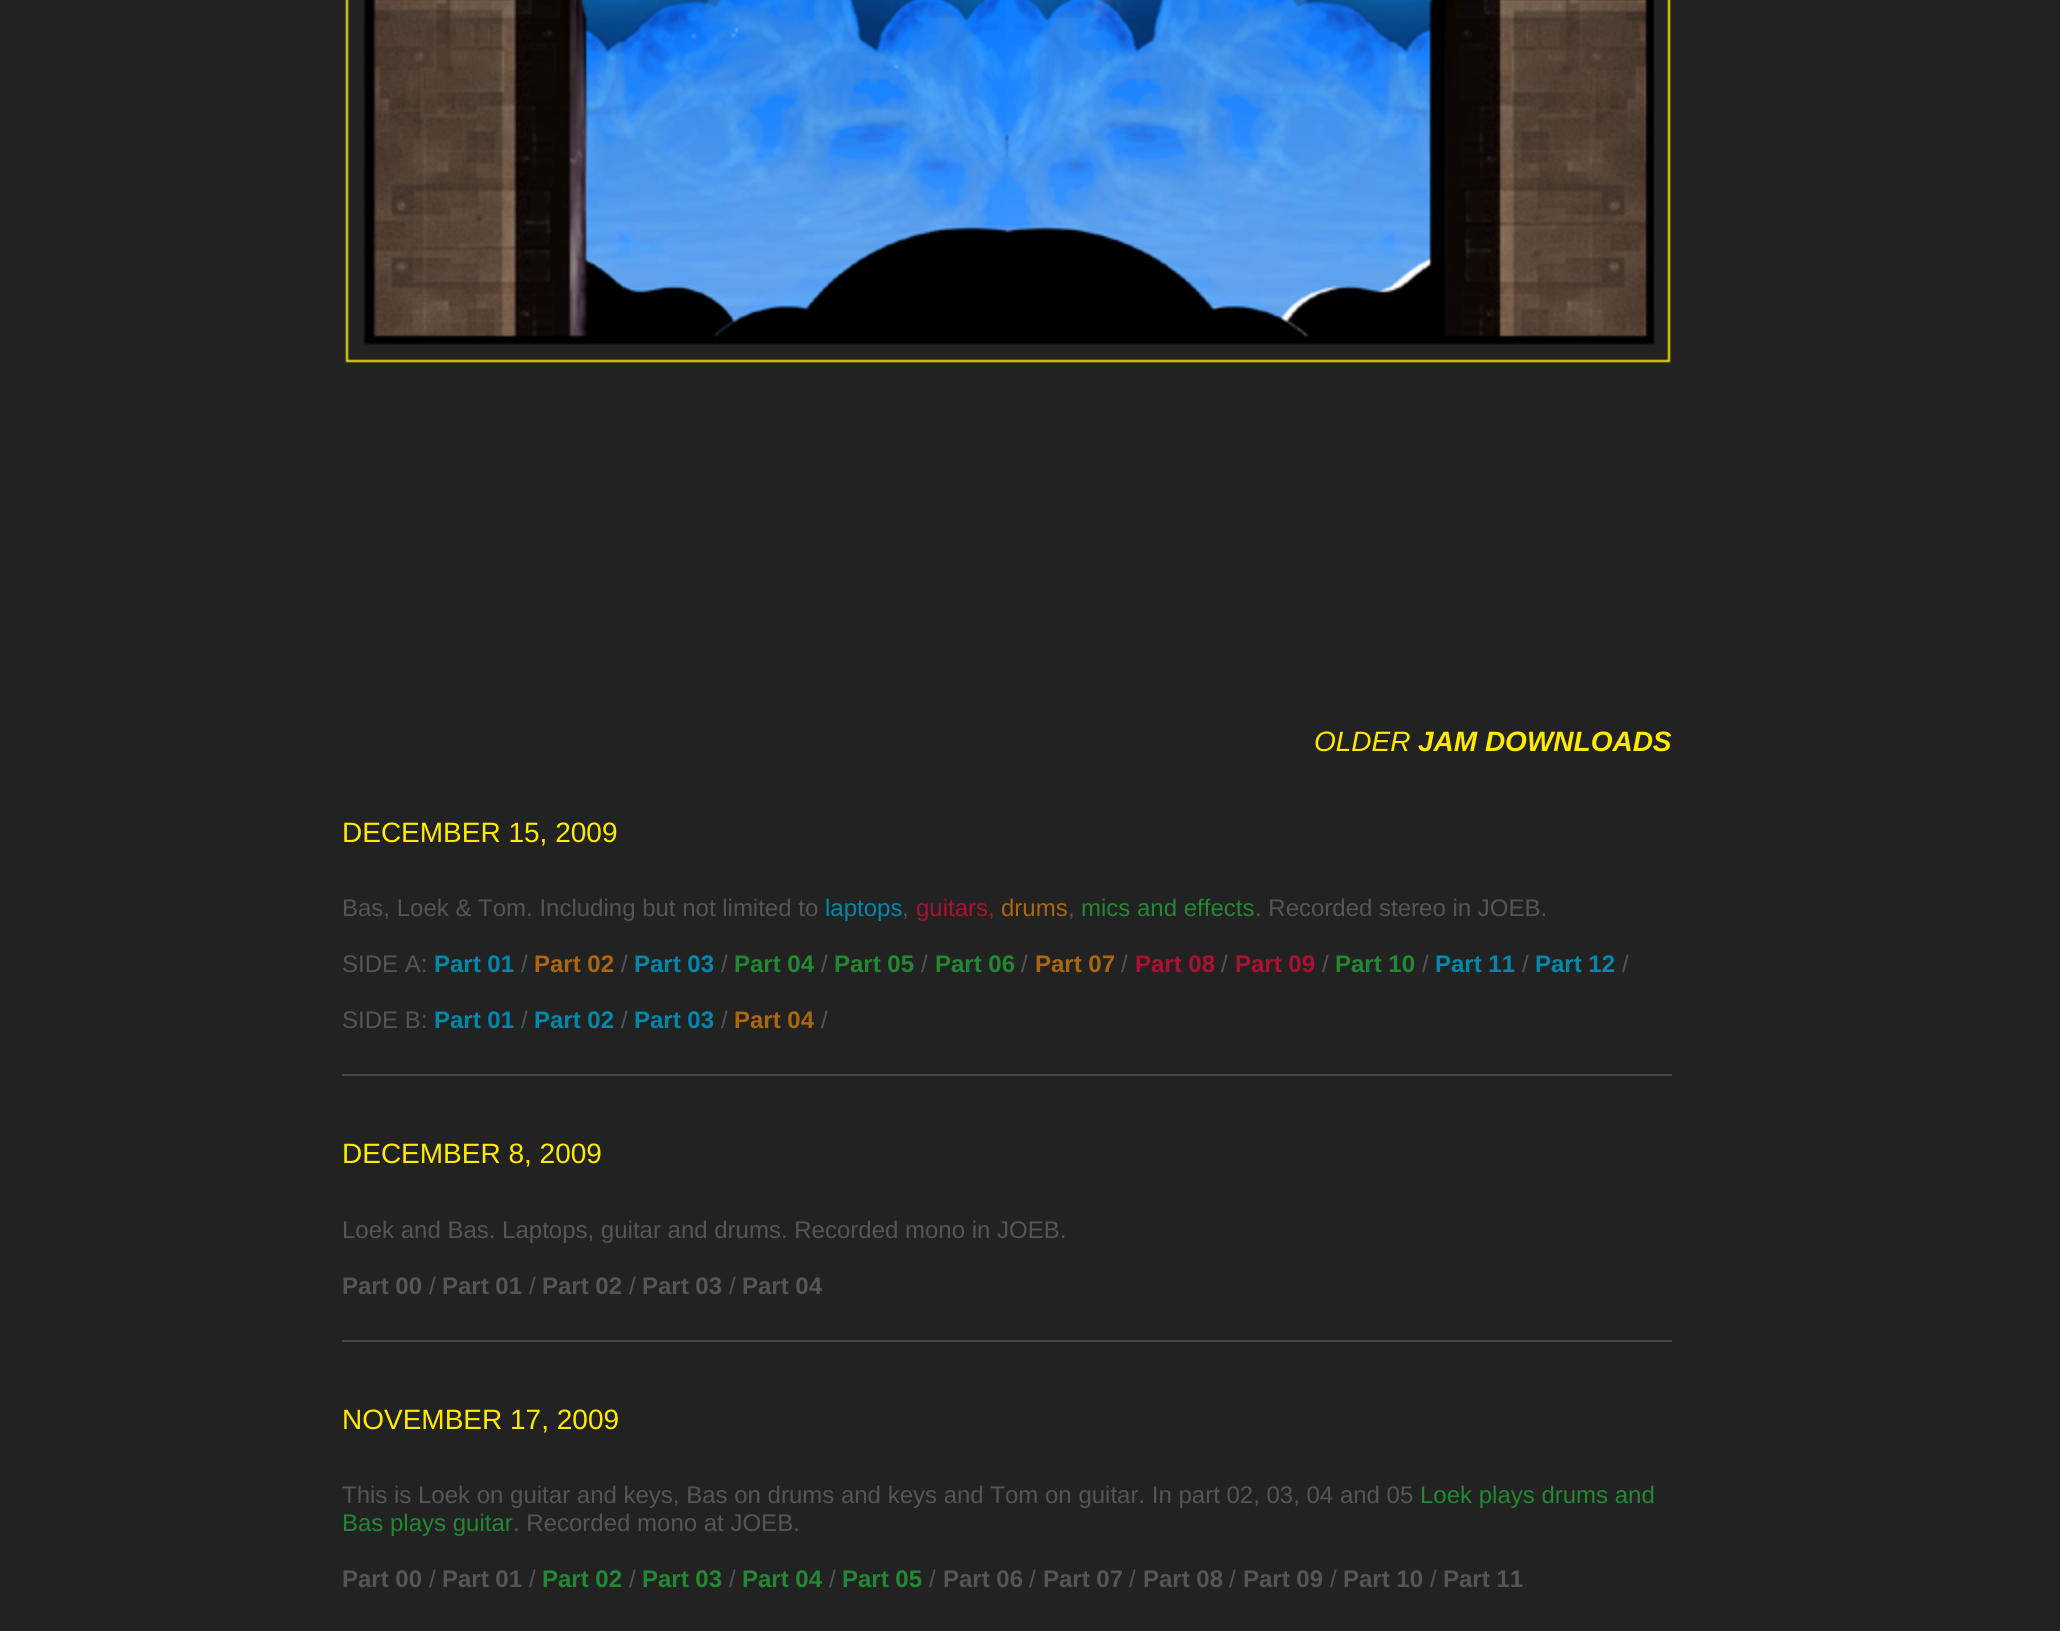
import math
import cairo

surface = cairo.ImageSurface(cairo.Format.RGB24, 2060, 1631)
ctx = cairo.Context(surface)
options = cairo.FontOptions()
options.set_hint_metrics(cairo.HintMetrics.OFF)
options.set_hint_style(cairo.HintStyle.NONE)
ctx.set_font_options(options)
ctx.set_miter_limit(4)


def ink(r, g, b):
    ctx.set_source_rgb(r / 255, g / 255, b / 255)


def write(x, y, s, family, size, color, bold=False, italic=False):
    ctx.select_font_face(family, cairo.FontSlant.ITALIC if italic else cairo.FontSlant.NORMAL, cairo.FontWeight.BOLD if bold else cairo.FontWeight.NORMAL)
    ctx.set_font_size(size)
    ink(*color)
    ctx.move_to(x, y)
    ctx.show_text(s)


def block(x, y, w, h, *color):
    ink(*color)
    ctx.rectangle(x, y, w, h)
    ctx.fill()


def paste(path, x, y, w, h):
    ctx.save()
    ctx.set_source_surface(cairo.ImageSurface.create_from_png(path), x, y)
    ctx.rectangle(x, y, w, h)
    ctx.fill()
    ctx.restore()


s1 = dict(family="Liberation Sans", size=28, color=(255, 234, 0), italic=True)
s2 = dict(family="Liberation Sans", size=28, color=(255, 234, 0), bold=True, italic=True)
s3 = dict(family="Liberation Sans", size=28, color=(255, 234, 0))
s4 = dict(family="Liberation Sans", size=24, color=(85, 85, 85))
s5 = dict(family="Liberation Sans", size=24, color=(1, 136, 170))
s6 = dict(family="Liberation Sans", size=24, color=(170, 17, 51))
s7 = dict(family="Liberation Sans", size=24, color=(170, 102, 17))
s8 = dict(family="Liberation Sans", size=24, color=(34, 136, 51))
s9 = dict(family="Liberation Sans", size=24, color=(1, 136, 170), bold=True)
s10 = dict(family="Liberation Sans", size=24, color=(170, 102, 17), bold=True)
s11 = dict(family="Liberation Sans", size=24, color=(34, 136, 51), bold=True)
s12 = dict(family="Liberation Sans", size=24, color=(170, 17, 51), bold=True)
s13 = dict(family="Liberation Sans", size=24, color=(85, 85, 85), bold=True)

ink(34, 34, 34)
ctx.paint()
paste("pic1.png", 345, 0, 1326, 363)
write(1314, 751, "OLDER", **s1)
write(1418, 751, "JAM DOWNLOADS", **s2)
write(342, 842, "DECEMBER 15, 2009", **s3)
write(342, 916, "Bas, Loek & Tom. Including but not limited to", **s4)
write(825, 916, "laptops", **s5)
write(902, 916, ",", **s4)
write(916, 916, "guitars,", **s6)
write(1001, 916, "drums", **s7)
write(1068, 916, ",", **s4)
write(1081, 916, "mics and effects", **s8)
write(1255, 916, ". Recorded stereo in JOEB.", **s4)
write(342, 972, "SIDE A:", **s4)
write(434, 972, "Part 01", **s9)
write(521, 972, "/", **s4)
write(534, 972, "Part 02", **s10)
write(621, 972, "/", **s4)
write(634, 972, "Part 03", **s9)
write(721, 972, "/", **s4)
write(734, 972, "Part 04", **s11)
write(821, 972, "/", **s4)
write(834, 972, "Part 05", **s11)
write(921, 972, "/", **s4)
write(935, 972, "Part 06", **s11)
write(1021, 972, "/", **s4)
write(1035, 972, "Part 07", **s10)
write(1121, 972, "/", **s4)
write(1135, 972, "Part 08", **s12)
write(1221, 972, "/", **s4)
write(1235, 972, "Part 09", **s12)
write(1322, 972, "/", **s4)
write(1335, 972, "Part 10", **s11)
write(1422, 972, "/", **s4)
write(1435, 972, "Part 11", **s9)
write(1522, 972, "/", **s4)
write(1535, 972, "Part 12", **s9)
write(1622, 972, "/", **s4)
write(342, 1028, "SIDE B:", **s4)
write(434, 1028, "Part 01", **s9)
write(521, 1028, "/", **s4)
write(534, 1028, "Part 02", **s9)
write(621, 1028, "/", **s4)
write(634, 1028, "Part 03", **s9)
write(721, 1028, "/", **s4)
write(734, 1028, "Part 04", **s10)
write(821, 1028, "/", **s4)
block(342, 1074, 1330, 2, 68, 68, 68)
write(342, 1163, "DECEMBER 8, 2009", **s3)
write(342, 1238, "Loek and Bas. Laptops, guitar and drums. Recorded mono in JOEB.", **s4)
write(342, 1294, "Part 00", **s13)
write(429, 1294, "/", **s4)
write(442, 1294, "Part 01", **s13)
write(529, 1294, "/", **s4)
write(542, 1294, "Part 02", **s13)
write(629, 1294, "/", **s4)
write(642, 1294, "Part 03", **s13)
write(729, 1294, "/", **s4)
write(742, 1294, "Part 04", **s13)
block(342, 1340, 1330, 2, 68, 68, 68)
write(342, 1429, "NOVEMBER 17, 2009", **s3)
write(342, 1503, "This is Loek on guitar and keys, Bas on drums and keys and Tom on guitar. In part 02, 03, 04 and 05", **s4)
write(1420, 1503, "Loek plays drums and", **s8)
write(342, 1531, "Bas plays guitar", **s8)
write(513, 1531, ". Recorded mono at JOEB.", **s4)
write(342, 1587, "Part 00", **s13)
write(429, 1587, "/", **s4)
write(442, 1587, "Part 01", **s13)
write(529, 1587, "/", **s4)
write(542, 1587, "Part 02", **s11)
write(629, 1587, "/", **s4)
write(642, 1587, "Part 03", **s11)
write(729, 1587, "/", **s4)
write(742, 1587, "Part 04", **s11)
write(829, 1587, "/", **s4)
write(842, 1587, "Part 05", **s11)
write(929, 1587, "/", **s4)
write(943, 1587, "Part 06", **s13)
write(1029, 1587, "/", **s4)
write(1043, 1587, "Part 07", **s13)
write(1129, 1587, "/", **s4)
write(1143, 1587, "Part 08", **s13)
write(1229, 1587, "/", **s4)
write(1243, 1587, "Part 09", **s13)
write(1330, 1587, "/", **s4)
write(1343, 1587, "Part 10", **s13)
write(1430, 1587, "/", **s4)
write(1443, 1587, "Part 11", **s13)
surface.write_to_png("screenshot.png")
